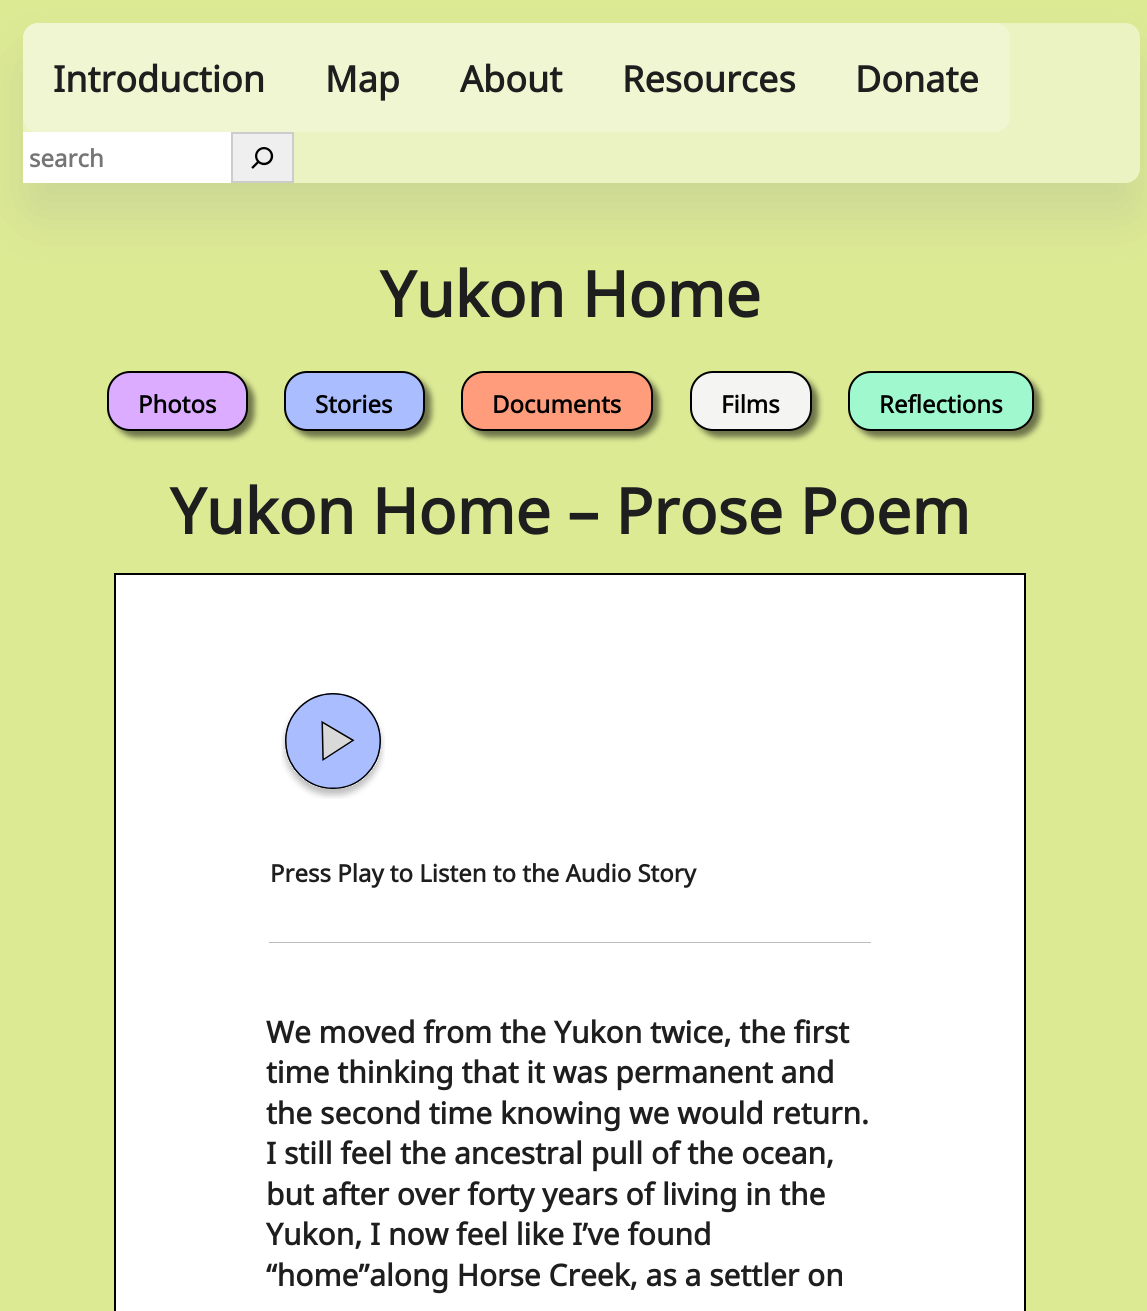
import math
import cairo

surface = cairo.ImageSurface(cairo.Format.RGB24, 1147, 1311)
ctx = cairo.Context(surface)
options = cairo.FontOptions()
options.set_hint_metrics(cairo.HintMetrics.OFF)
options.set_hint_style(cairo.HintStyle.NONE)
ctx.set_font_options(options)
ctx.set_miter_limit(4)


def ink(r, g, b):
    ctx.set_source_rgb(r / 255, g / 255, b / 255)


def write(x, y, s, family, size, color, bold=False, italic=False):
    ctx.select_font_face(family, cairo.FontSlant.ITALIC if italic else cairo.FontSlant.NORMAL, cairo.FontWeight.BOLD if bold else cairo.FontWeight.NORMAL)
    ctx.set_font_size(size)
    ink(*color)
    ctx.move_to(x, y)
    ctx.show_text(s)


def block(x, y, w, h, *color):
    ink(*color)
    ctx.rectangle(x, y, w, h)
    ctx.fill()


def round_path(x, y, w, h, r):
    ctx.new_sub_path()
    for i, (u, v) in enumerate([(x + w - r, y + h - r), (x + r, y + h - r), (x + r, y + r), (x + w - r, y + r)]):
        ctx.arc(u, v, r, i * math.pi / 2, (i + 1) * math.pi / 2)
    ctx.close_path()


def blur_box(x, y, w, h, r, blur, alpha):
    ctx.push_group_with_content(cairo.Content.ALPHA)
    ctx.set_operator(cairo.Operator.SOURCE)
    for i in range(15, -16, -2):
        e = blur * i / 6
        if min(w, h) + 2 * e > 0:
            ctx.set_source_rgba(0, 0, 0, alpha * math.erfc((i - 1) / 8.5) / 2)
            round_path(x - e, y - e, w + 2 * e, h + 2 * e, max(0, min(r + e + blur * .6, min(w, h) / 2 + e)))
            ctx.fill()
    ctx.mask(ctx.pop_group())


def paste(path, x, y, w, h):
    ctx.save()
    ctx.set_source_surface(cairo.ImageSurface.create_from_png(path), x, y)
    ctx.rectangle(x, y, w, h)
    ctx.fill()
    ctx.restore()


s1 = dict(family="Noto Sans", size=36, color=(30, 30, 30), bold=True)
s2 = dict(family="Noto Sans", size=24, color=(117, 117, 117), bold=True)
s3 = dict(family="Noto Sans", size=63, color=(30, 30, 30), bold=True)
s4 = dict(family="Noto Sans", size=24, color=(0, 0, 0), bold=True)
s5 = dict(family="Noto Sans", size=24, color=(30, 30, 30), bold=True)
s6 = dict(family="Noto Sans", size=30, color=(30, 30, 30), bold=True)

ink(221, 234, 148)
ctx.paint()
ctx.save()
ctx.set_fill_rule(cairo.FillRule.EVEN_ODD)
ctx.new_path()
ctx.move_to(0, 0)
ctx.line_to(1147, 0)
ctx.line_to(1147, 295)
ctx.line_to(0, 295)
ctx.close_path()
ctx.move_to(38, 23)
ctx.line_to(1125, 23)
ctx.curve_to(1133.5, 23, 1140, 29.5, 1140, 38)
ctx.line_to(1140, 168)
ctx.curve_to(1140, 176.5, 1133.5, 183, 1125, 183)
ctx.line_to(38, 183)
ctx.curve_to(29.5, 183, 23, 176.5, 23, 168)
ctx.line_to(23, 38)
ctx.curve_to(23, 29.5, 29.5, 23, 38, 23)
ctx.close_path()
ctx.clip()
ink(98, 103, 145)
blur_box(23, 56, 1117, 160, 15, 26, 0.15)
ctx.restore()
ctx.set_source_rgba(1, 1, 1, 0.25)
round_path(23, 23, 1117, 160, 15)
ctx.fill()
round_path(23, 23, 1117, 160, 15)
ctx.fill()
round_path(23, 23, 987, 109, 15)
ctx.fill()
write(53, 92, "Introduction", **s1)
write(325, 92, "Map", **s1)
write(460, 92, "About", **s1)
write(622, 92, "Resources", **s1)
write(855, 92, "Donate", **s1)
block(23, 132, 208, 51, 255, 255, 255)
write(29, 167, "search", **s2)
ink(239, 239, 239)
ctx.rectangle(232, 133, 61, 49)
ctx.fill_preserve()
ink(204, 204, 204)
ctx.stroke()
paste("pic1.png", 251, 147, 23, 22)
write(380, 317, "Yukon Home", **s3)
ink(0, 0, 0)
blur_box(113, 377, 141, 60, 23, 3, 0.35)
blur_box(113, 377, 141, 60, 23, 3, 0.25)
ink(219, 172, 255)
round_path(108, 372, 139, 58, 22)
ctx.fill_preserve()
ink(0, 0, 0)
ctx.stroke()
write(138, 413, "Photos", **s4)
ink(0, 0, 0)
blur_box(290, 377, 141, 60, 23, 3, 0.35)
blur_box(290, 377, 141, 60, 23, 3, 0.25)
ink(170, 189, 255)
round_path(285, 372, 139, 58, 22)
ctx.fill_preserve()
ink(0, 0, 0)
ctx.stroke()
write(315, 413, "Stories", **s4)
ink(0, 0, 0)
blur_box(467, 377, 192, 60, 23, 3, 0.35)
blur_box(467, 377, 192, 60, 23, 3, 0.25)
ink(255, 156, 124)
round_path(462, 372, 190, 58, 22)
ctx.fill_preserve()
ink(0, 0, 0)
ctx.stroke()
write(492, 413, "Documents", **s4)
ink(0, 0, 0)
blur_box(696, 377, 122, 60, 23, 3, 0.35)
blur_box(696, 377, 122, 60, 23, 3, 0.25)
ink(244, 245, 243)
round_path(691, 372, 120, 58, 22)
ctx.fill_preserve()
ink(0, 0, 0)
ctx.stroke()
write(721, 413, "Films", **s4)
ink(0, 0, 0)
blur_box(854, 377, 186, 60, 23, 3, 0.35)
blur_box(854, 377, 186, 60, 23, 3, 0.25)
ink(160, 249, 206)
round_path(849, 372, 184, 58, 22)
ctx.fill_preserve()
ink(0, 0, 0)
ctx.stroke()
write(879, 413, "Reflections", **s4)
write(170, 534, "Yukon Home – Prose Poem", **s3)
ink(255, 255, 255)
ctx.rectangle(115, 574, 910, 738)
ctx.fill_preserve()
ink(0, 0, 0)
ctx.stroke()
paste("pic2.png", 281, 693, 104, 106)
write(270, 882, "Press Play to Listen to the Audio Story", **s5)
ink(189, 189, 189)
ctx.new_path()
ctx.move_to(871, 942)
ctx.line_to(269, 942)
ctx.line_to(269, 943)
ctx.line_to(822, 943)
ctx.line_to(813, 943)
ctx.line_to(871, 943)
ctx.close_path()
ctx.fill()
write(266, 1043, "We moved from the Yukon twice, the first", **s6)
write(266, 1083, "time thinking that it was permanent and", **s6)
write(266, 1124, "the second time knowing we would return.", **s6)
write(266, 1164, "I still feel the ancestral pull of the ocean,", **s6)
write(266, 1205, "but after over forty years of living in the", **s6)
write(266, 1245, "Yukon, I now feel like I’ve found", **s6)
write(266, 1286, "“home”along Horse Creek, as a settler on", **s6)
surface.write_to_png("screenshot.png")
